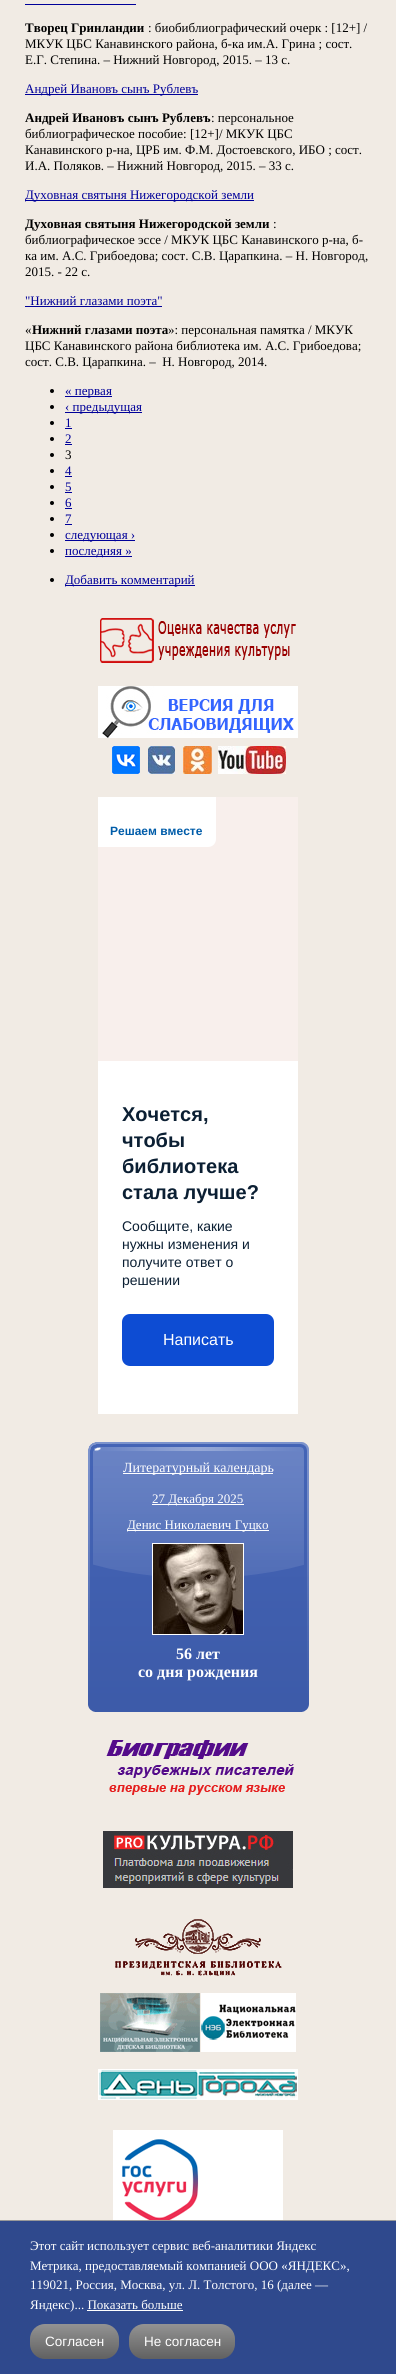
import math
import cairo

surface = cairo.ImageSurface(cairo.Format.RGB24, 396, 2374)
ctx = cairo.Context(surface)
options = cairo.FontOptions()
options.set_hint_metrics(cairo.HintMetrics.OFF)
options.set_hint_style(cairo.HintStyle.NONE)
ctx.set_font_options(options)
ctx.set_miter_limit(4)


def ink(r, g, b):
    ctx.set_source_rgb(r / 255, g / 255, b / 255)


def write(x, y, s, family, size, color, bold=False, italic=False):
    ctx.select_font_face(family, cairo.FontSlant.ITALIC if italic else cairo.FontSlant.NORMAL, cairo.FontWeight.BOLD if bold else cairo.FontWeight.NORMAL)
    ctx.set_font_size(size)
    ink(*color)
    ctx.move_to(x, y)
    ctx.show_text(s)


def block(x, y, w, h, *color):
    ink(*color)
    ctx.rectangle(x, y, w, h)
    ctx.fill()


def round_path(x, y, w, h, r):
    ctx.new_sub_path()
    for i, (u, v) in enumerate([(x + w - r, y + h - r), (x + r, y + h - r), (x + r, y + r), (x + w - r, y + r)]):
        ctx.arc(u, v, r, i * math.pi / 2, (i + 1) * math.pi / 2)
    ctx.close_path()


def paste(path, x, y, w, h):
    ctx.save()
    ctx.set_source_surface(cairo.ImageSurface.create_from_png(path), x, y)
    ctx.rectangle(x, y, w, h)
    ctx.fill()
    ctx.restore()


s1 = dict(family="Liberation Serif", size=13, color=(0, 0, 0), bold=True)
s2 = dict(family="Liberation Serif", size=13, color=(0, 0, 0))
s3 = dict(family="Liberation Serif", size=13, color=(0, 0, 153))
s4 = dict(family="Liberation Sans", size=12, color=(0, 92, 169), bold=True)
s5 = dict(family="Liberation Sans", size=20, color=(11, 31, 51), bold=True)
s6 = dict(family="Liberation Sans", size=14, color=(11, 31, 51))
s7 = dict(family="Liberation Sans", size=16, color=(255, 255, 255))
s8 = dict(family="Liberation Serif", size=14, color=(255, 255, 255))
s9 = dict(family="Liberation Serif", size=13, color=(255, 255, 255))
s10 = dict(family="Liberation Serif", size=16, color=(255, 255, 255), bold=True)
s11 = dict(family="Liberation Sans", size=13.5, color=(255, 255, 255))

ink(241, 235, 228)
ctx.paint()
block(25, 4, 111, 1, 0, 0, 153)
write(25, 32, "Творец Гринландии", **s1)
write(148, 32, ": биобиблиографический очерк : [12+] /", **s2)
write(25, 48, "МКУК ЦБС Канавинского района, б-ка им.А. Грина ; сост.", **s2)
write(25, 64, "Е.Г. Степина. – Нижний Новгород, 2015. – 13 с.", **s2)
block(25, 94, 173, 1, 0, 0, 153)
write(25, 93, "Андрей Ивановъ сынъ Рублевъ", **s3)
write(25, 122, "Андрей Ивановъ сынъ Рублевъ", **s1)
write(211, 122, ": персональное", **s2)
write(25, 138, "библиографическое пособие: [12+]/ МКУК ЦБС", **s2)
write(25, 154, "Канавинского р-на, ЦРБ им. Ф.М. Достоевского, ИБО ; сост.", **s2)
write(25, 170, "И.А. Поляков. – Нижний Новгород, 2015. – 33 с.", **s2)
block(25, 200, 229, 1, 0, 0, 153)
write(25, 199, "Духовная святыня Нижегородской земли", **s3)
write(25, 228, "Духовная святыня Нижегородской земли", **s1)
write(273, 228, ":", **s2)
write(25, 244, "библиографическое эссе / МКУК ЦБС Канавинского р-на, б-", **s2)
write(25, 260, "ка им. А.С. Грибоедова; сост. С.В. Царапкина. – Н. Новгород,", **s2)
write(25, 276, "2015. - 22 с.", **s2)
write(25, 305, "\"Нижний глазами поэта\"", **s3)
block(25, 306, 137, 1, 0, 0, 153)
write(25, 334, "«", **s2)
write(32, 334, "Нижний глазами поэта", **s1)
write(168, 334, "»: персональная памятка / МКУК", **s2)
write(25, 350, "ЦБС Канавинского района библиотека им. А.С. Грибоедова;", **s2)
write(25, 366, "сост. С.В. Царапкина. –  Н. Новгород, 2014.", **s2)
ctx.new_path()
ctx.arc(52, 391, 2, 0, 2 * math.pi)
ctx.fill()
block(65, 396, 47, 1, 0, 0, 153)
write(65, 395, "« первая", **s3)
ink(0, 0, 0)
ctx.new_path()
ctx.arc(52, 407, 2, 0, 2 * math.pi)
ctx.fill()
block(65, 412, 77, 1, 0, 0, 153)
write(65, 411, "‹ предыдущая", **s3)
ink(0, 0, 0)
ctx.new_path()
ctx.arc(52, 423, 2, 0, 2 * math.pi)
ctx.fill()
write(65, 427, "1", **s3)
block(65, 428, 7, 1, 0, 0, 153)
ink(0, 0, 0)
ctx.new_path()
ctx.arc(52, 439, 2, 0, 2 * math.pi)
ctx.fill()
write(65, 443, "2", **s3)
block(65, 444, 7, 1, 0, 0, 153)
ink(0, 0, 0)
ctx.new_path()
ctx.arc(52, 455, 2, 0, 2 * math.pi)
ctx.fill()
write(65, 459, "3", **s2)
ctx.new_path()
ctx.arc(52, 471, 2, 0, 2 * math.pi)
ctx.fill()
write(65, 475, "4", **s3)
block(65, 476, 7, 1, 0, 0, 153)
ink(0, 0, 0)
ctx.new_path()
ctx.arc(52, 487, 2, 0, 2 * math.pi)
ctx.fill()
write(65, 491, "5", **s3)
block(65, 492, 7, 1, 0, 0, 153)
ink(0, 0, 0)
ctx.new_path()
ctx.arc(52, 503, 2, 0, 2 * math.pi)
ctx.fill()
write(65, 507, "6", **s3)
block(65, 508, 7, 1, 0, 0, 153)
ink(0, 0, 0)
ctx.new_path()
ctx.arc(52, 519, 2, 0, 2 * math.pi)
ctx.fill()
write(65, 523, "7", **s3)
block(65, 524, 7, 1, 0, 0, 153)
ink(0, 0, 0)
ctx.new_path()
ctx.arc(52, 535, 2, 0, 2 * math.pi)
ctx.fill()
block(65, 540, 70, 1, 0, 0, 153)
write(65, 539, "следующая ›", **s3)
ink(0, 0, 0)
ctx.new_path()
ctx.arc(52, 551, 2, 0, 2 * math.pi)
ctx.fill()
block(65, 556, 67, 1, 0, 0, 153)
write(65, 555, "последняя »", **s3)
ink(0, 0, 0)
ctx.new_path()
ctx.arc(52, 580, 2, 0, 2 * math.pi)
ctx.fill()
block(65, 585, 130, 1, 0, 0, 153)
write(65, 584, "Добавить комментарий", **s3)
paste("pic1.png", 100, 618, 196, 45)
paste("pic2.png", 98, 686, 200, 52)
paste("pic3.png", 112, 746, 28, 28)
paste("pic4.png", 148, 746, 27, 28)
paste("pic5.png", 183, 746, 29, 28)
paste("pic6.png", 218, 746, 68, 28)
block(98, 1061, 200, 353, 255, 255, 255)
block(98, 797, 200, 264, 248, 239, 236)
ink(255, 255, 255)
ctx.new_path()
ctx.move_to(98, 797)
ctx.line_to(216, 797)
ctx.line_to(216, 839)
ctx.curve_to(216, 843.5, 212.5, 847, 208, 847)
ctx.line_to(98, 847)
ctx.close_path()
ctx.fill()
write(110, 835, "Решаем вместе", **s4)
write(122, 1121, "Хочется,", **s5)
write(122, 1147, "чтобы", **s5)
write(122, 1173, "библиотека", **s5)
write(122, 1199, "стала лучше?", **s5)
write(122, 1231, "Сообщите, какие", **s6)
write(122, 1249, "нужны изменения и", **s6)
write(122, 1267, "получите ответ о", **s6)
write(122, 1285, "решении", **s6)
ink(13, 76, 211)
round_path(122, 1314, 152, 52, 8)
ctx.fill()
write(163, 1345, "Написать", **s7)
paste("pic7.png", 88, 1442, 221, 270)
block(123, 1473, 150, 1, 255, 255, 255)
write(123, 1472, "Литературный календарь", **s8)
block(152, 1504, 92, 1, 255, 255, 255)
write(152, 1503, "27 Декабря 2025", **s9)
block(127, 1530, 142, 1, 255, 255, 255)
write(127, 1529, "Денис Николаевич Гуцко", **s9)
ctx.rectangle(152.5, 1543.5, 91, 91)
ctx.set_line_width(1)
ctx.stroke()
paste("pic8.png", 153, 1544, 90, 90)
write(176, 1659, "56 лет", **s10)
write(138, 1677, "со дня рождения", **s10)
paste("pic9.png", 106, 1740, 188, 55)
paste("pic10.png", 103, 1831, 190, 57)
paste("pic11.png", 115, 1919, 167, 57)
paste("pic12.png", 100, 1993, 100, 59)
paste("pic13.png", 201, 1993, 95, 59)
paste("pic14.png", 98, 2069, 200, 31)
paste("pic15.png", 113, 2130, 170, 90)
block(0, 2221, 396, 153, 47, 73, 141)
block(0, 2220, 396, 1, 153, 153, 153)
write(30, 2250, "Этот сайт использует сервис веб-аналитики Яндекс", **s9)
write(30, 2270, "Метрика, предоставляемый компанией ООО «ЯНДЕКС»,", **s9)
write(30, 2289, "119021, Россия, Москва, ул. Л. Толстого, 16 (далее —", **s9)
write(30, 2309, "Яндекс)... Показать больше", **s9)
block(87, 2310, 96, 1, 255, 255, 255)
gradient = cairo.LinearGradient(75, 2324, 75, 2359)
gradient.add_color_stop_rgba(0, 0.576, 0.576, 0.576, 1)
gradient.add_color_stop_rgba(0.5, 0.478, 0.478, 0.478, 1)
gradient.add_color_stop_rgba(1, 0.38, 0.38, 0.38, 1)
ctx.set_source(gradient)
round_path(30, 2324, 89, 35, 15)
ctx.fill()
write(45, 2346, "Согласен", **s11)
gradient = cairo.LinearGradient(182, 2324, 182, 2359)
gradient.add_color_stop_rgba(0, 0.576, 0.576, 0.576, 1)
gradient.add_color_stop_rgba(0.5, 0.478, 0.478, 0.478, 1)
gradient.add_color_stop_rgba(1, 0.38, 0.38, 0.38, 1)
ctx.set_source(gradient)
round_path(129, 2324, 106, 35, 15)
ctx.fill()
write(144, 2346, "Не согласен", **s11)
surface.write_to_png("screenshot.png")
